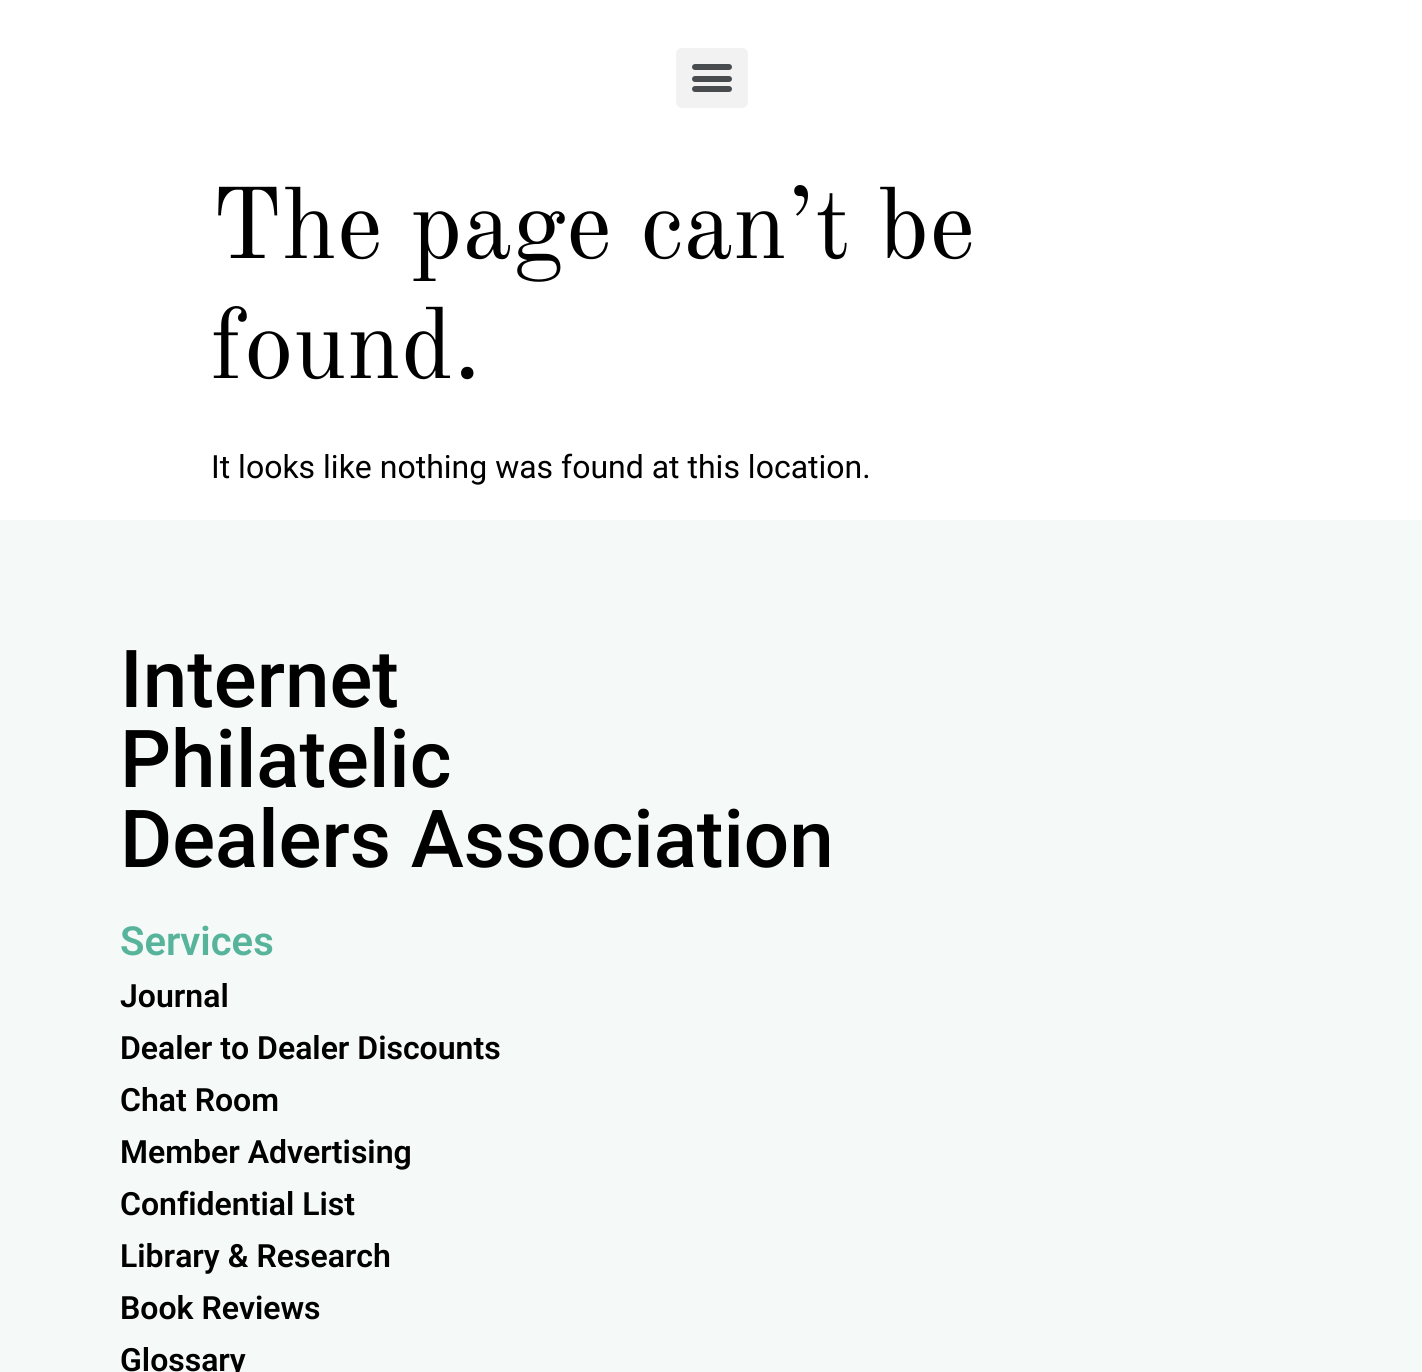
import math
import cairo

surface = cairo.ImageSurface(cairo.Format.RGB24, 1422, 1372)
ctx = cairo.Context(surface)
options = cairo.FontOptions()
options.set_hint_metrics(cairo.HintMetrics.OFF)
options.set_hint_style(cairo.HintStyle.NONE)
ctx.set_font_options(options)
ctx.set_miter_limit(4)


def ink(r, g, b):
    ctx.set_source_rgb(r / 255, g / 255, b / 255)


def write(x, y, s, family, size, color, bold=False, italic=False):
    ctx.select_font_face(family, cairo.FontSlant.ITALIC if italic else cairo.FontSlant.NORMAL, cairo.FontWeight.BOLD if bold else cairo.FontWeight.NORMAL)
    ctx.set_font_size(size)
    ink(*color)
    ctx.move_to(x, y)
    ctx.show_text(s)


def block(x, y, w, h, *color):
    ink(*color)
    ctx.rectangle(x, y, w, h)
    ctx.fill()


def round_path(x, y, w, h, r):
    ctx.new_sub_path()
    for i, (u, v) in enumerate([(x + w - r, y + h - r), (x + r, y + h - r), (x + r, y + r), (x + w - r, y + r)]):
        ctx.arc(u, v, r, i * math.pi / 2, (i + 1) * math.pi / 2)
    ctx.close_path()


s1 = dict(family="Old Standard TT", size=100, color=(0, 0, 0))
s2 = dict(family="Roboto", size=32, color=(0, 0, 0))
s3 = dict(family="Roboto Medium", size=80, color=(0, 0, 0))
s4 = dict(family="Roboto SemiBold", size=40, color=(87, 180, 155))
s5 = dict(family="Roboto SemiBold", size=32, color=(0, 0, 0))

ink(255, 255, 255)
ctx.paint()
ink(242, 242, 242)
round_path(676, 48, 72, 60, 6)
ctx.fill()
ink(73, 76, 79)
round_path(692, 76, 40, 6, 3)
ctx.fill()
round_path(692, 64, 40, 6, 3)
ctx.fill()
round_path(692, 86, 40, 6, 3)
ctx.fill()
write(211, 258, "The page can’t be", **s1)
write(211, 378, "found.", **s1)
write(211, 478, "It looks like nothing was found at this location.", **s2)
block(0, 520, 1422, 852, 245, 249, 248)
write(120, 707, "Internet", **s3)
write(120, 787, "Philatelic", **s3)
write(120, 867, "Dealers Association", **s3)
write(120, 955, "Services", **s4)
write(120, 1007, "Journal", **s5)
write(120, 1059, "Dealer to Dealer Discounts", **s5)
write(120, 1111, "Chat Room", **s5)
write(120, 1163, "Member Advertising", **s5)
write(120, 1215, "Confidential List", **s5)
write(120, 1267, "Library & Research", **s5)
write(120, 1319, "Book Reviews", **s5)
write(120, 1371, "Glossary", **s5)
surface.write_to_png("screenshot.png")
